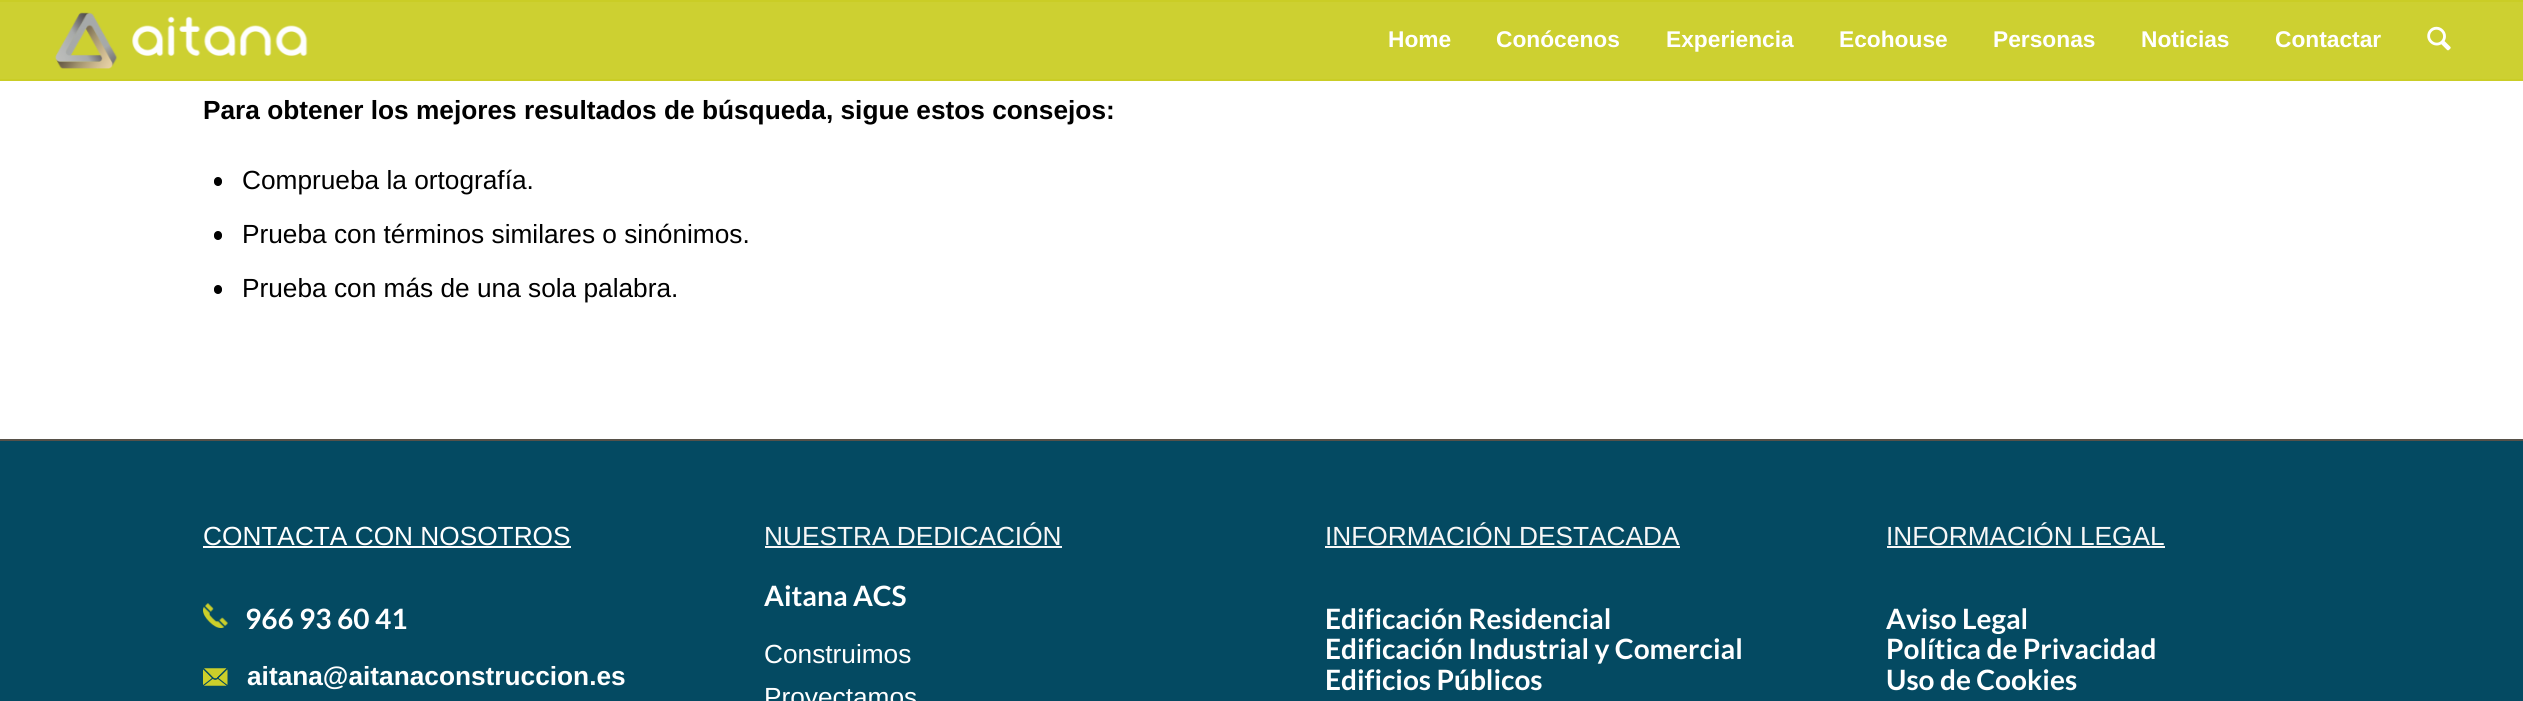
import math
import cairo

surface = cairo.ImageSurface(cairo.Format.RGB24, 2523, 701)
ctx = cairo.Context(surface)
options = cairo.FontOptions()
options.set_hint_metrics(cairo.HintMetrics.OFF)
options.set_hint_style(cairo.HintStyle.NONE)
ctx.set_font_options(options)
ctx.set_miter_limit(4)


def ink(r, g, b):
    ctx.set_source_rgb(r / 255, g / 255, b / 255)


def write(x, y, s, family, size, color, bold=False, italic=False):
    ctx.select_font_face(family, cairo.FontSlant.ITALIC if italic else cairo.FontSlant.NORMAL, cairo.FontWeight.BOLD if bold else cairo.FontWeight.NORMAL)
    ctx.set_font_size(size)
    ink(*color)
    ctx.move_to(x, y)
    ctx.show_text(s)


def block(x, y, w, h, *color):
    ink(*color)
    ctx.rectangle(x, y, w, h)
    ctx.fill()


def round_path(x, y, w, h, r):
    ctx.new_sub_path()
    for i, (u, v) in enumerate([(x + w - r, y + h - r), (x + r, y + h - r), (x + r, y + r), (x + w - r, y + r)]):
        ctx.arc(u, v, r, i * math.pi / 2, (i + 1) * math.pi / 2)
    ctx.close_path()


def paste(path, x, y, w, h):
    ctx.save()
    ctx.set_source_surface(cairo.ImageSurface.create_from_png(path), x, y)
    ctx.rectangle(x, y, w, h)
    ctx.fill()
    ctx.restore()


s1 = dict(family="Liberation Sans", size=22.75, color=(255, 255, 255), bold=True)
s2 = dict(family="Liberation Sans", size=26.25, color=(0, 0, 0), bold=True)
s3 = dict(family="Liberation Sans", size=26.25, color=(0, 0, 0))
s4 = dict(family="Liberation Sans", size=26.25, color=(255, 255, 255))
s5 = dict(family="Lato", size=28, color=(255, 255, 255), bold=True)
s6 = dict(family="Liberation Sans", size=26.25, color=(255, 255, 255), bold=True)
s7 = dict(family="Liberation Sans", size=26.25, color=(247, 247, 247))

ink(255, 255, 255)
ctx.paint()
block(0, 2, 2523, 77, 205, 208, 49)
block(0, 0, 2523, 2, 202, 205, 38)
block(0, 79, 2523, 2, 202, 205, 38)
paste("pic1.png", 55, 12, 253, 57)
write(1388, 47, "Home", **s1)
write(1496, 47, "Conócenos", **s1)
write(1666, 47, "Experiencia", **s1)
write(1839, 47, "Ecohouse", **s1)
write(1993, 47, "Personas", **s1)
write(2141, 47, "Noticias", **s1)
write(2275, 47, "Contactar", **s1)
paste("pic2.png", 2427, 26, 24, 25)
write(203, 119, "Para obtener los mejores resultados de búsqueda, sigue estos consejos:", **s2)
round_path(214, 177, 8, 9, 4)
ctx.fill()
write(242, 189, "Comprueba la ortografía.", **s3)
round_path(214, 231, 8, 9, 4)
ctx.fill()
write(242, 243, "Prueba con términos similares o sinónimos.", **s3)
round_path(214, 285, 8, 9, 4)
ctx.fill()
write(242, 297, "Prueba con más de una sola palabra.", **s3)
block(0, 441, 2523, 260, 4, 74, 98)
block(0, 439, 2523, 2, 87, 81, 73)
write(203, 545, "CONTACTA CON NOSOTROS", **s4)
block(203, 546, 368, 2, 255, 255, 255)
paste("pic3.png", 203, 603, 25, 25)
write(245, 629, "966 93 60 41", **s5)
paste("pic4.png", 203, 668, 25, 18)
write(247, 685, "aitana@aitanaconstruccion.es", **s6)
write(764, 545, "NUESTRA DEDICACIÓN", **s7)
block(765, 546, 297, 2, 247, 247, 247)
write(764, 606, "Aitana ACS", **s5)
write(764, 663, "Construimos", **s4)
write(764, 706, "Proyectamos", **s4)
write(1325, 545, "INFORMACIÓN DESTACADA", **s7)
block(1325, 546, 355, 2, 247, 247, 247)
write(1325, 629, "Edificación Residencial", **s5)
write(1325, 659, "Edificación Industrial y Comercial", **s5)
write(1325, 690, "Edificios Públicos", **s5)
write(1886, 545, "INFORMACIÓN LEGAL", **s7)
block(1887, 546, 278, 2, 247, 247, 247)
write(1886, 629, "Aviso Legal", **s5)
write(1886, 659, "Política de Privacidad", **s5)
write(1886, 690, "Uso de Cookies", **s5)
surface.write_to_png("screenshot.png")
